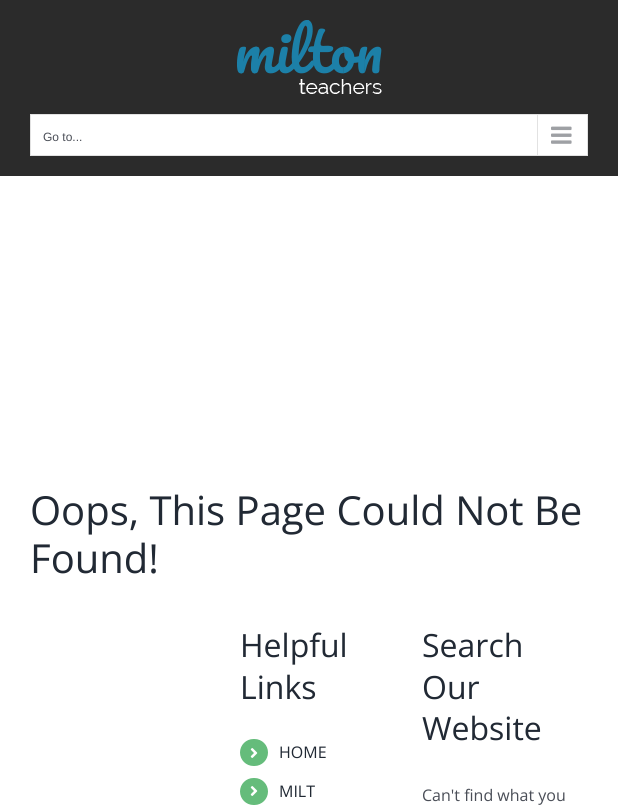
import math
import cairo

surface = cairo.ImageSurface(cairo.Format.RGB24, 618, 809)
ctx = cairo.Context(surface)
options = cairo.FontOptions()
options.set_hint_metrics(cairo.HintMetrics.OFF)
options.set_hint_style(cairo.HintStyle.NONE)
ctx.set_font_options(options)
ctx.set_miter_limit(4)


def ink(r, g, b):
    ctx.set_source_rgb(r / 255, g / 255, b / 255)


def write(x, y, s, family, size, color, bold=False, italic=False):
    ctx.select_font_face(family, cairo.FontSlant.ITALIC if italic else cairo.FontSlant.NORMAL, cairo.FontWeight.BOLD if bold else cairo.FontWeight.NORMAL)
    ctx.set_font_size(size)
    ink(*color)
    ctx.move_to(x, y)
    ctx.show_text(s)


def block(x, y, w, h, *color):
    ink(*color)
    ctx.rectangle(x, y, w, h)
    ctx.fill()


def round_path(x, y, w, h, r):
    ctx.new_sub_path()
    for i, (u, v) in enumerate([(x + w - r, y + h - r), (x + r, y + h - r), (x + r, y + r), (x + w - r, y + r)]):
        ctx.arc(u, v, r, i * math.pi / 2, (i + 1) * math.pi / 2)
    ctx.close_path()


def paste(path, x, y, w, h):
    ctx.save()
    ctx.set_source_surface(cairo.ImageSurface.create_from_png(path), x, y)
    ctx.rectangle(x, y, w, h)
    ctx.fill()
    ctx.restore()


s1 = dict(family="Liberation Sans", size=12, color=(74, 78, 87))
s2 = dict(family="Open Sans", size=40, color=(33, 41, 52))
s3 = dict(family="Open Sans", size=32, color=(33, 41, 52))
s4 = dict(family="Open Sans", size=16, color=(33, 41, 52))
s5 = dict(family="Open Sans", size=16, color=(74, 78, 87))

ink(255, 255, 255)
ctx.paint()
block(0, 0, 618, 176, 43, 43, 43)
paste("pic1.png", 237, 20, 145, 74)
ink(255, 255, 255)
ctx.rectangle(30.5, 114.5, 557, 41)
ctx.fill_preserve()
ink(226, 226, 226)
ctx.set_line_width(1)
ctx.stroke()
write(43, 141, "Go to...", **s1)
block(537, 115, 1, 40, 226, 226, 226)
paste("pic2.png", 551, 126, 21, 18)
write(30, 525, "Oops, This Page Could Not Be", **s2)
write(30, 573, "Found!", **s2)
write(240, 657, "Helpful", **s3)
write(240, 699, "Links", **s3)
ink(101, 188, 123)
round_path(240, 739, 28, 27, 13.5)
ctx.fill()
paste("pic3.png", 250, 748, 8, 10)
write(279, 758, "HOME", **s4)
ink(101, 188, 123)
round_path(240, 778, 28, 27, 13.5)
ctx.fill()
paste("pic3.png", 250, 786, 8, 10)
write(279, 797, "MILT", **s4)
write(422, 657, "Search", **s3)
write(422, 699, "Our", **s3)
write(422, 740, "Website", **s3)
write(422, 801, "Can't find what you", **s5)
surface.write_to_png("screenshot.png")
